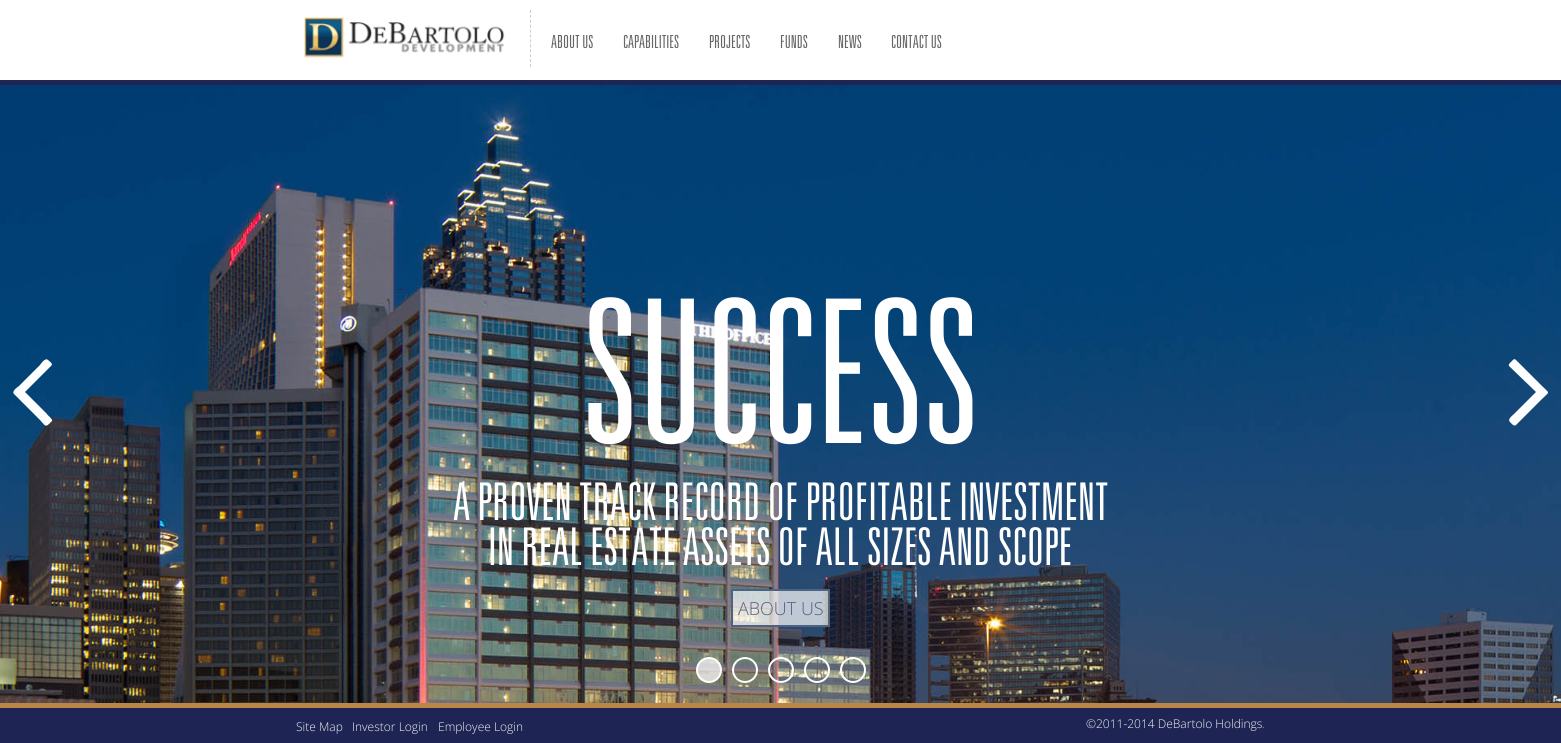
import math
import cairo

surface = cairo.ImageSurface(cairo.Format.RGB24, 1561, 743)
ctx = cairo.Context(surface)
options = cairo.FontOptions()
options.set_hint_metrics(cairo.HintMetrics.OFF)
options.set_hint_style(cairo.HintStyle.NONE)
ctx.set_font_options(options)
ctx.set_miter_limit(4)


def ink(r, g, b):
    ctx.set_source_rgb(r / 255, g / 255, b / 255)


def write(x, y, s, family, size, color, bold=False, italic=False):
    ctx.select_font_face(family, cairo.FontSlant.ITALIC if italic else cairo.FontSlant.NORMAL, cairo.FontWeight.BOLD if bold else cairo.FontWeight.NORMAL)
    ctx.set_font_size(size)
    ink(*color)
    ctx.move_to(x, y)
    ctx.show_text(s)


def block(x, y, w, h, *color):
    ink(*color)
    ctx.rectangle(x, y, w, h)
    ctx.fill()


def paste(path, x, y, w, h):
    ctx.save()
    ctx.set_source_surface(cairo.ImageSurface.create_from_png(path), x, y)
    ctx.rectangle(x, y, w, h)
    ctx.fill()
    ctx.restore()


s1 = dict(family="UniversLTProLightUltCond", size=18, color=(102, 102, 102))
s2 = dict(family="UniversLTProLightUltCond", size=200, color=(255, 255, 255))
s3 = dict(family="UniversLTProLightUltCond", size=52, color=(255, 255, 255))
s4 = dict(family="Open Sans Light", size=18, color=(78, 99, 129))
s5 = dict(family="Open Sans Light", size=12, color=(242, 242, 242))

ink(255, 255, 255)
ctx.paint()
block(0, 80, 1561, 5, 30, 37, 84)
ctx.new_path()
ctx.move_to(530.5, 10)
ctx.line_to(530.5, 67)
ink(204, 204, 204)
ctx.set_line_width(1)
ctx.set_dash([3, 1.91])
ctx.stroke()
paste("pic1.png", 304, 17, 201, 41)
write(551, 48, "ABOUT US", **s1)
write(623, 48, "CAPABILITIES", **s1)
write(709, 48, "PROJECTS", **s1)
write(780, 48, "FUNDS", **s1)
write(838, 48, "NEWS", **s1)
write(891, 48, "CONTACT US", **s1)
paste("pic2.png", 0, 85, 1561, 618)
ink(255, 255, 255)
ctx.new_path()
ctx.move_to(14, 394)
ctx.curve_to(11, 391, 19, 386, 19, 386)
ctx.line_to(40, 365)
ctx.curve_to(40, 365, 45, 357, 48, 360)
ctx.curve_to(49, 361, 54, 364, 51, 366)
ctx.line_to(25, 392)
ctx.line_to(47, 414)
ctx.curve_to(47, 415, 53, 419, 52, 421)
ctx.line_to(49, 424)
ctx.curve_to(45, 428, 44, 424, 40, 420)
ctx.close_path()
ctx.fill()
write(582, 443, "SUCCESS", **s2)
write(453, 520, "A PROVEN TRACK RECORD OF PROFITABLE INVESTMENT", **s3)
write(488, 565, "IN REAL ESTATE ASSETS OF ALL SIZES AND SCOPE", **s3)
ctx.set_source_rgba(1, 1, 1, 0.7)
ctx.rectangle(732, 590, 97, 36)
ctx.fill_preserve()
ink(78, 99, 129)
ctx.set_line_width(2)
ctx.set_dash([])
ctx.stroke()
write(738, 615, "ABOUT US", **s4)
ctx.set_source_rgba(1, 1, 1, 0.7)
ctx.new_path()
ctx.arc(709, 670, 12, 0, 2 * math.pi)
ctx.fill_preserve()
ink(255, 255, 255)
ctx.stroke()
ctx.arc(745, 670, 12, 0, 2 * math.pi)
ctx.stroke()
ctx.arc(781, 670, 12, 0, 2 * math.pi)
ctx.stroke()
ctx.arc(817, 670, 12, 0, 2 * math.pi)
ctx.stroke()
ctx.arc(853, 670, 12, 0, 2 * math.pi)
ctx.stroke()
ctx.new_path()
ctx.move_to(1510, 422)
ctx.curve_to(1507, 419, 1513, 415, 1514, 414)
ctx.line_to(1536, 392)
ctx.line_to(1509, 366)
ctx.curve_to(1508, 364, 1511, 362, 1512, 361)
ctx.curve_to(1513, 360, 1514, 358, 1516, 360)
ctx.line_to(1542, 386)
ctx.curve_to(1550, 394, 1550, 391, 1542, 399)
ctx.line_to(1516, 425)
ctx.curve_to(1514, 427, 1511, 423, 1510, 422)
ctx.close_path()
ctx.fill()
block(0, 708, 1561, 35, 30, 37, 84)
block(0, 703, 1561, 5, 186, 135, 72)
write(296, 731, "Site Map", **s5)
write(352, 731, "Investor Login", **s5)
write(438, 731, "Employee Login", **s5)
write(1086, 728, "©2011-2014 DeBartolo Holdings.", **s5)
surface.write_to_png("screenshot.png")
